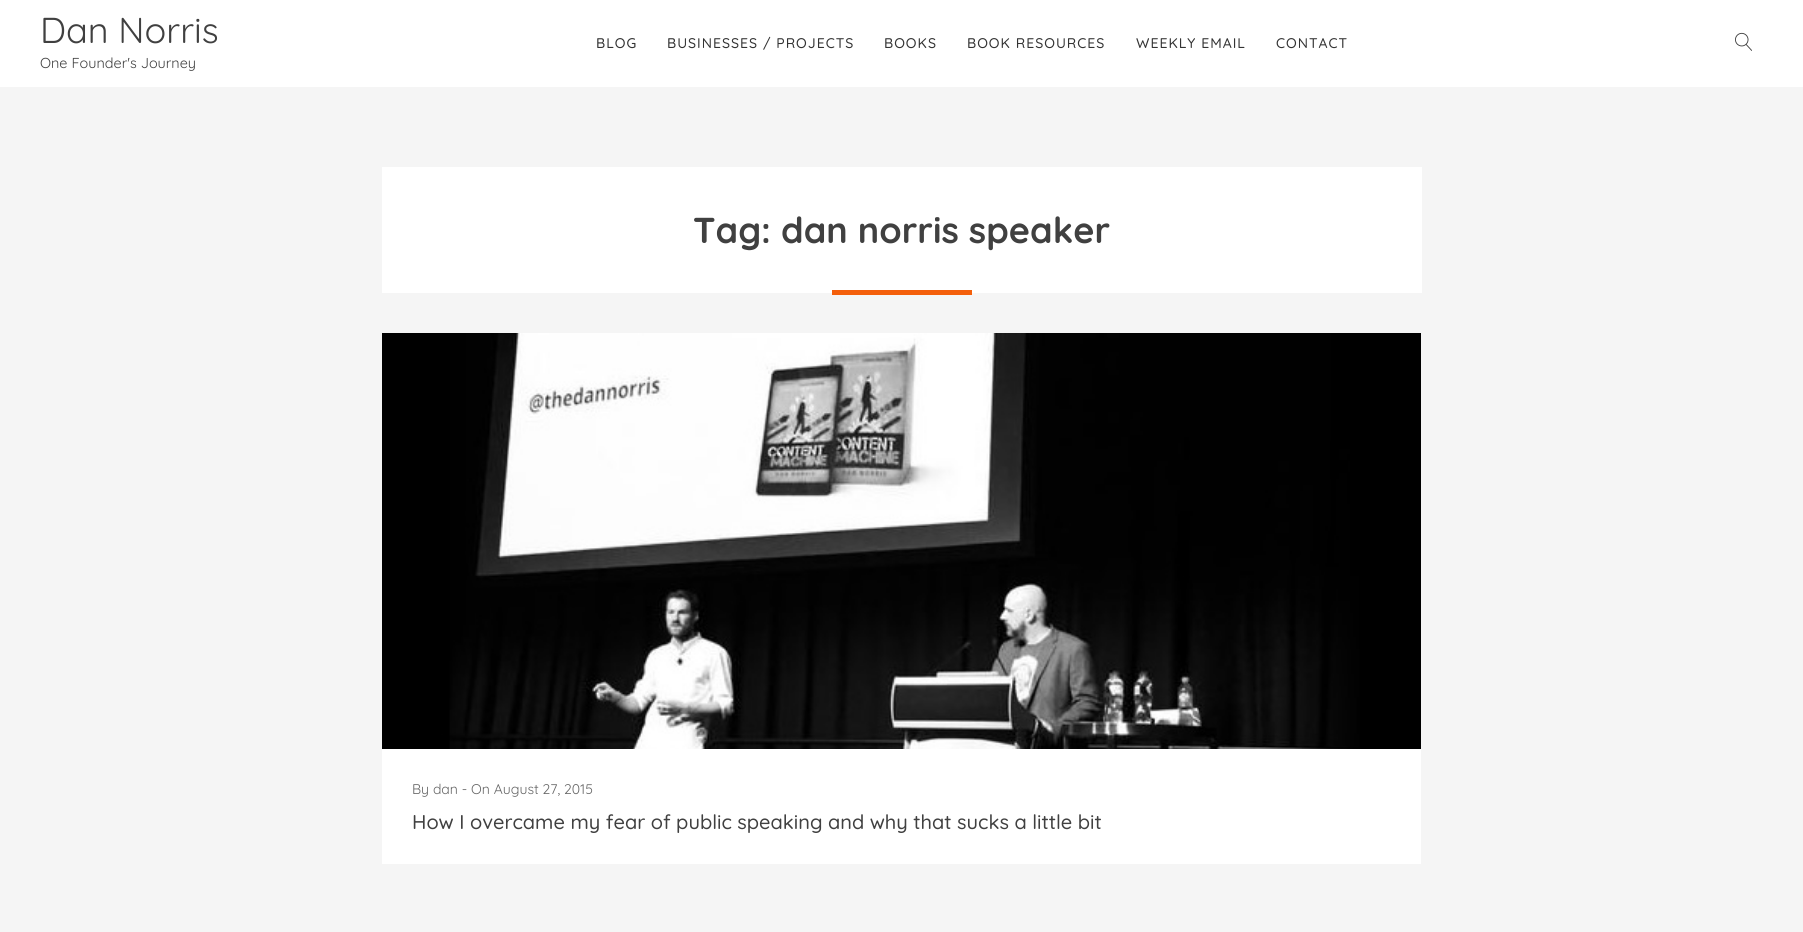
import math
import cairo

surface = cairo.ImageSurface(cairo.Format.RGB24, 1803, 932)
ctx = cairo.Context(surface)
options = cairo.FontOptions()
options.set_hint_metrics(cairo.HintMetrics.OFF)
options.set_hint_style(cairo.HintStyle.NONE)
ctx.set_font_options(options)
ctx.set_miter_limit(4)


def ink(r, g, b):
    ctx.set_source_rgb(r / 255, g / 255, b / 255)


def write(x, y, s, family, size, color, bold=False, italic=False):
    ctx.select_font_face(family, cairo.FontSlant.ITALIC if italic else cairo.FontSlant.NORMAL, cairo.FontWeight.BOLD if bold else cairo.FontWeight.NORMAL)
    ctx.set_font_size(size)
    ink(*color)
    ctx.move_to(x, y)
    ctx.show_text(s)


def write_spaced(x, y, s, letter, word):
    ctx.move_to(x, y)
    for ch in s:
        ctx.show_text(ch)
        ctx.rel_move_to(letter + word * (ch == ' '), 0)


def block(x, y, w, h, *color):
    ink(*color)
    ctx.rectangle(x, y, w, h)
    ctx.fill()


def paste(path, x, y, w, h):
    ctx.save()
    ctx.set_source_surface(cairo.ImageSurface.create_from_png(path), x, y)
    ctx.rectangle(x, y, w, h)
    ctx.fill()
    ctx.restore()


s1 = dict(family="Quicksand", size=36, color=(64, 64, 64))
s2 = dict(family="Quicksand", size=14.4, color=(64, 64, 64))
s3 = dict(family="Quicksand", size=36, color=(64, 64, 64), bold=True)
s4 = dict(family="Quicksand", size=14, color=(102, 102, 102))
s5 = dict(family="Quicksand Medium", size=20, color=(64, 64, 64))

ink(245, 245, 245)
ctx.paint()
block(0, 0, 1803, 87, 255, 255, 255)
write(40, 43, "Dan Norris", **s1)
write(40, 68, "One Founder's Journey", **s2)
ctx.select_font_face("Quicksand Medium")
ctx.set_font_size(14)
ink(51, 51, 51)
write_spaced(596, 48, "BLOG", 1, 0)
write_spaced(667, 48, "BUSINESSES / PROJECTS", 1, 0)
write_spaced(884, 48, "BOOKS", 1, 0)
write_spaced(967, 48, "BOOK RESOURCES", 1, 0)
write_spaced(1136, 48, "WEEKLY EMAIL", 1, 0)
write_spaced(1276, 48, "CONTACT", 1, 0)
paste("pic1.png", 1735, 32, 17, 19)
block(382, 167, 1040, 126, 255, 255, 255)
write(693, 243, "Tag: dan norris speaker", **s3)
block(832, 290, 140, 5, 244, 95, 11)
paste("pic2.png", 382, 333, 1039, 416)
block(382, 749, 1039, 115, 255, 255, 255)
write(412, 794, "By dan - On August 27, 2015", **s4)
write(412, 829, "How I overcame my fear of public speaking and why that sucks a little bit", **s5)
surface.write_to_png("screenshot.png")
